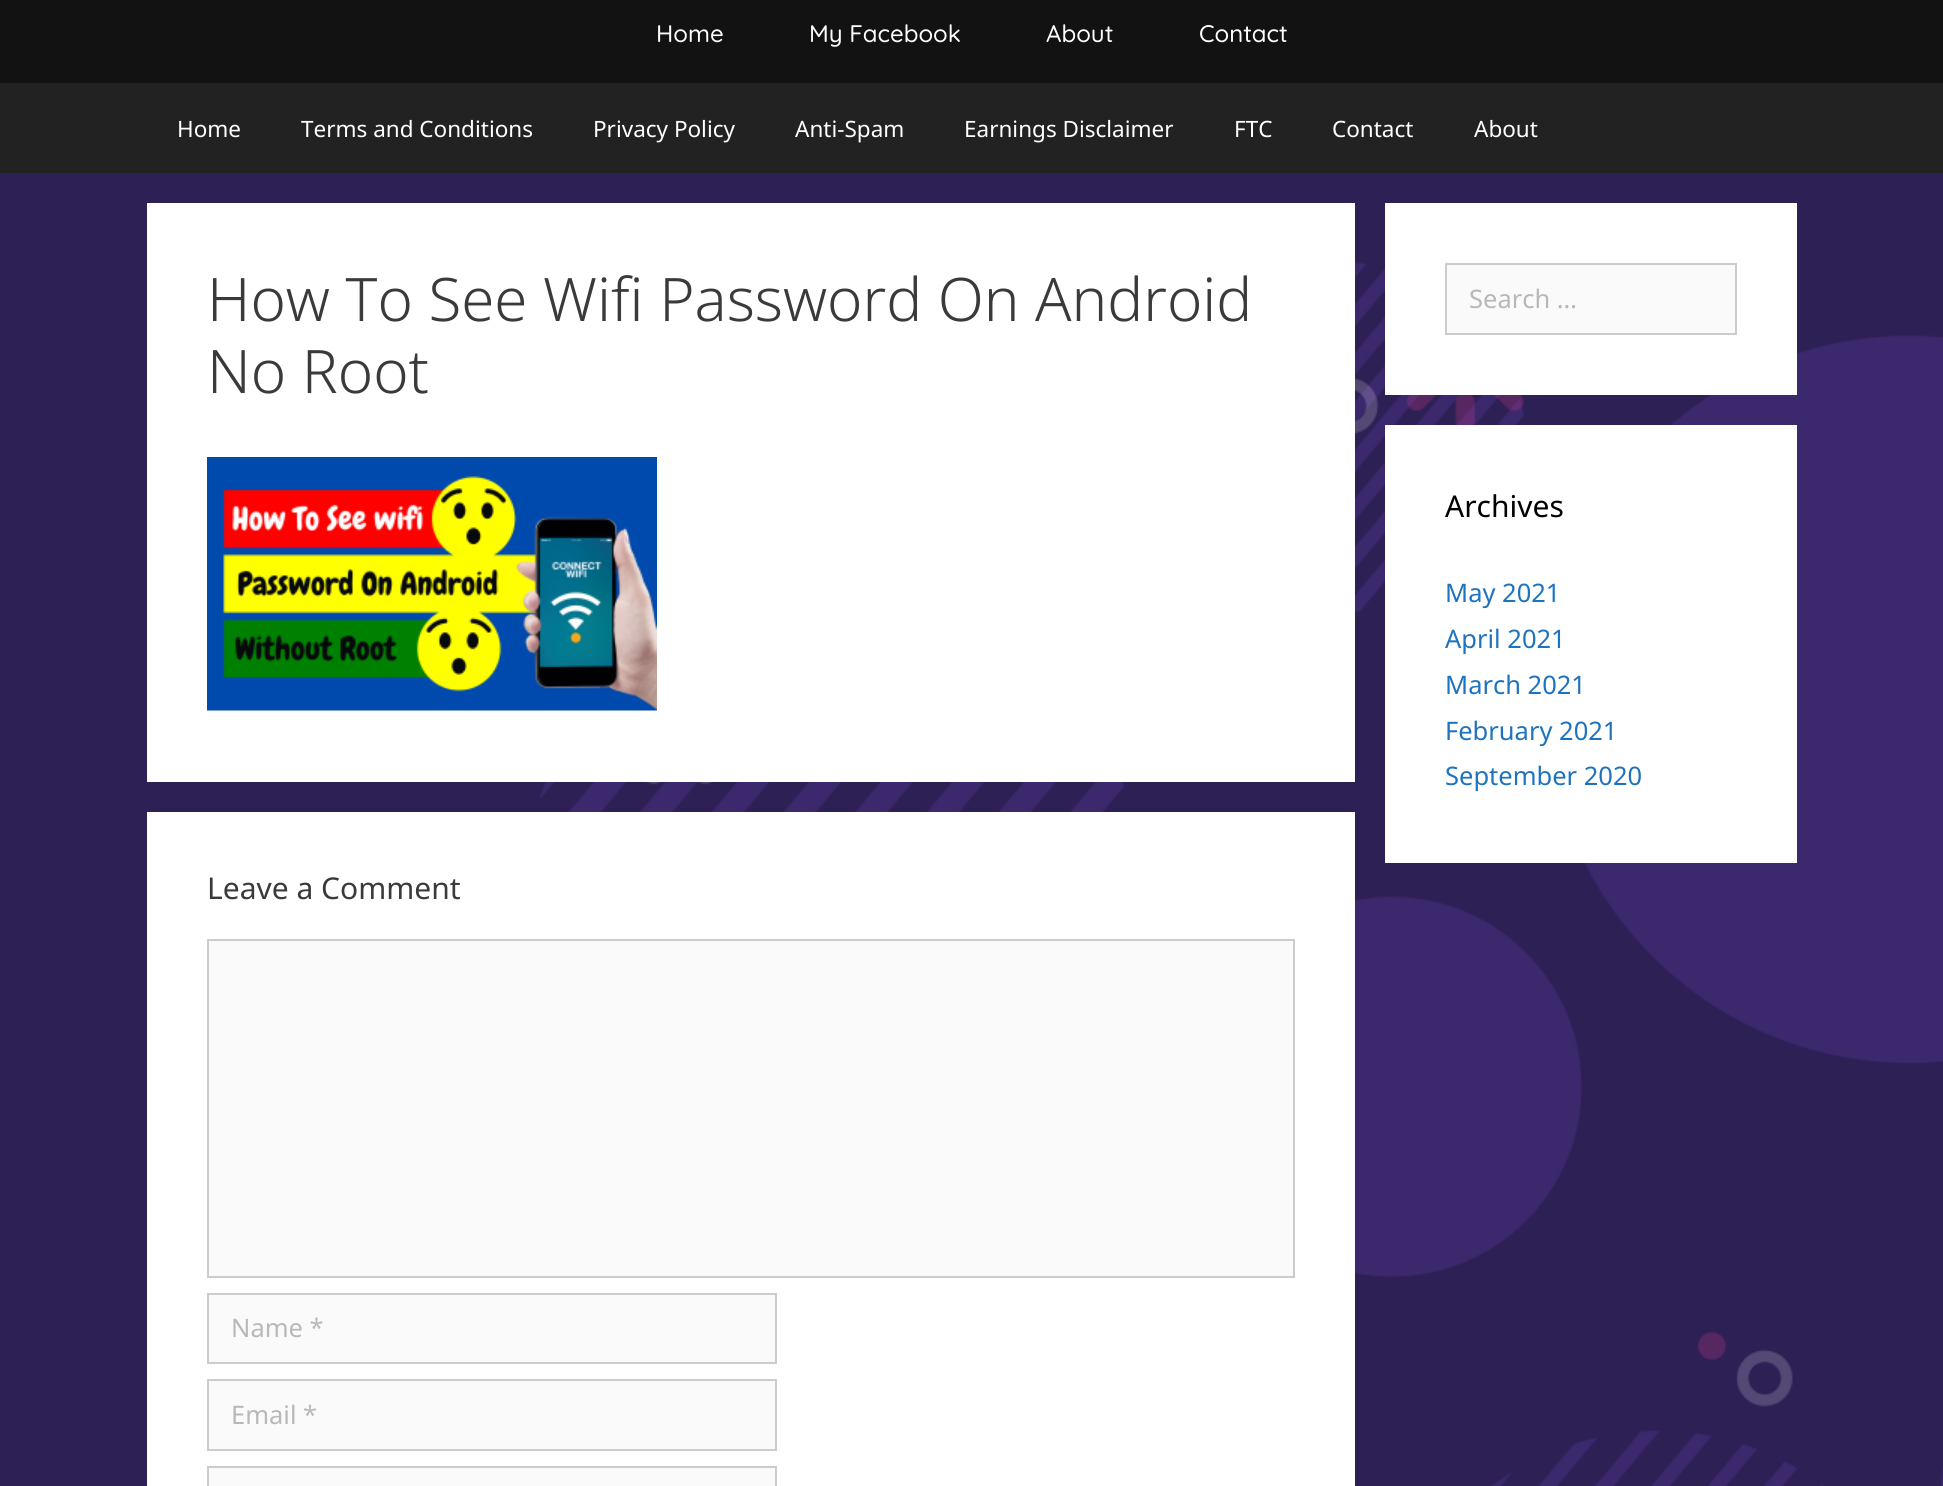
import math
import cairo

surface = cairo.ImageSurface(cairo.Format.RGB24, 1943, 1486)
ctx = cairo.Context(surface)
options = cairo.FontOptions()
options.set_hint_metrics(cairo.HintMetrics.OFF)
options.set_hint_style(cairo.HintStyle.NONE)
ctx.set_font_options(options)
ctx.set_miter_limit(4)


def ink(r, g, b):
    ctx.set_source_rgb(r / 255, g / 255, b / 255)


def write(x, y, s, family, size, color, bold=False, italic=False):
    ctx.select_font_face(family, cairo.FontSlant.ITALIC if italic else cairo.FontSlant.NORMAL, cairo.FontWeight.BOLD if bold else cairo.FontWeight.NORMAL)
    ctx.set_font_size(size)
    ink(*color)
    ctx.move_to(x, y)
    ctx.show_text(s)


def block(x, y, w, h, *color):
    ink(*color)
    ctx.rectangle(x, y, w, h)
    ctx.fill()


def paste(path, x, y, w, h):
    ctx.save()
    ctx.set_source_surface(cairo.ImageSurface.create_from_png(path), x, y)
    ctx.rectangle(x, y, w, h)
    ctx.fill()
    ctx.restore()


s1 = dict(family="Quicksand Medium", size=24, color=(255, 255, 255))
s2 = dict(family="Noto Sans", size=22.5, color=(255, 255, 255))
s3 = dict(family="Noto Sans Light", size=60, color=(58, 58, 58))
s4 = dict(family="Noto Sans", size=30, color=(58, 58, 58))
s5 = dict(family="Noto Sans", size=25.5, color=(184, 184, 184))
s6 = dict(family="Noto Sans", size=30, color=(0, 0, 0))
s7 = dict(family="Noto Sans", size=25.5, color=(30, 115, 190))

ink(255, 255, 255)
ctx.paint()
paste("pic1.png", 0, 173, 1943, 1313)
block(0, 0, 1943, 83, 18, 18, 18)
write(656, 42, "Home", **s1)
write(809, 42, "My Facebook", **s1)
write(1046, 42, "About", **s1)
write(1199, 42, "Contact", **s1)
block(0, 83, 1943, 90, 34, 34, 34)
write(177, 137, "Home", **s2)
write(301, 137, "Terms and Conditions", **s2)
write(593, 137, "Privacy Policy", **s2)
write(795, 137, "Anti-Spam", **s2)
write(964, 137, "Earnings Disclaimer", **s2)
write(1234, 137, "FTC", **s2)
write(1332, 137, "Contact", **s2)
write(1474, 137, "About", **s2)
block(147, 203, 1208, 579, 255, 255, 255)
write(207, 321, "How To See Wifi Password On Android", **s3)
write(207, 393, "No Root", **s3)
paste("pic2.png", 207, 457, 450, 254)
block(147, 812, 1208, 674, 255, 255, 255)
write(207, 899, "Leave a Comment", **s4)
ink(250, 250, 250)
ctx.rectangle(208, 940, 1086, 337)
ctx.fill_preserve()
ink(204, 204, 204)
ctx.stroke()
ink(250, 250, 250)
ctx.rectangle(208, 1294, 568, 69)
ctx.fill_preserve()
ink(204, 204, 204)
ctx.stroke()
write(231, 1337, "Name *", **s5)
ink(250, 250, 250)
ctx.rectangle(208, 1380, 568, 70)
ctx.fill_preserve()
ink(204, 204, 204)
ctx.stroke()
write(231, 1424, "Email *", **s5)
ink(250, 250, 250)
ctx.rectangle(208, 1467, 568, 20)
ctx.fill_preserve()
ink(204, 204, 204)
ctx.stroke()
block(1385, 203, 412, 192, 255, 255, 255)
ink(250, 250, 250)
ctx.rectangle(1446, 264, 290, 70)
ctx.fill_preserve()
ink(204, 204, 204)
ctx.stroke()
write(1469, 308, "Search …", **s5)
block(1385, 425, 412, 438, 255, 255, 255)
write(1445, 517, "Archives", **s6)
write(1445, 602, "May 2021", **s7)
write(1445, 648, "April 2021", **s7)
write(1445, 694, "March 2021", **s7)
write(1445, 740, "February 2021", **s7)
write(1445, 785, "September 2020", **s7)
surface.write_to_png("screenshot.png")
